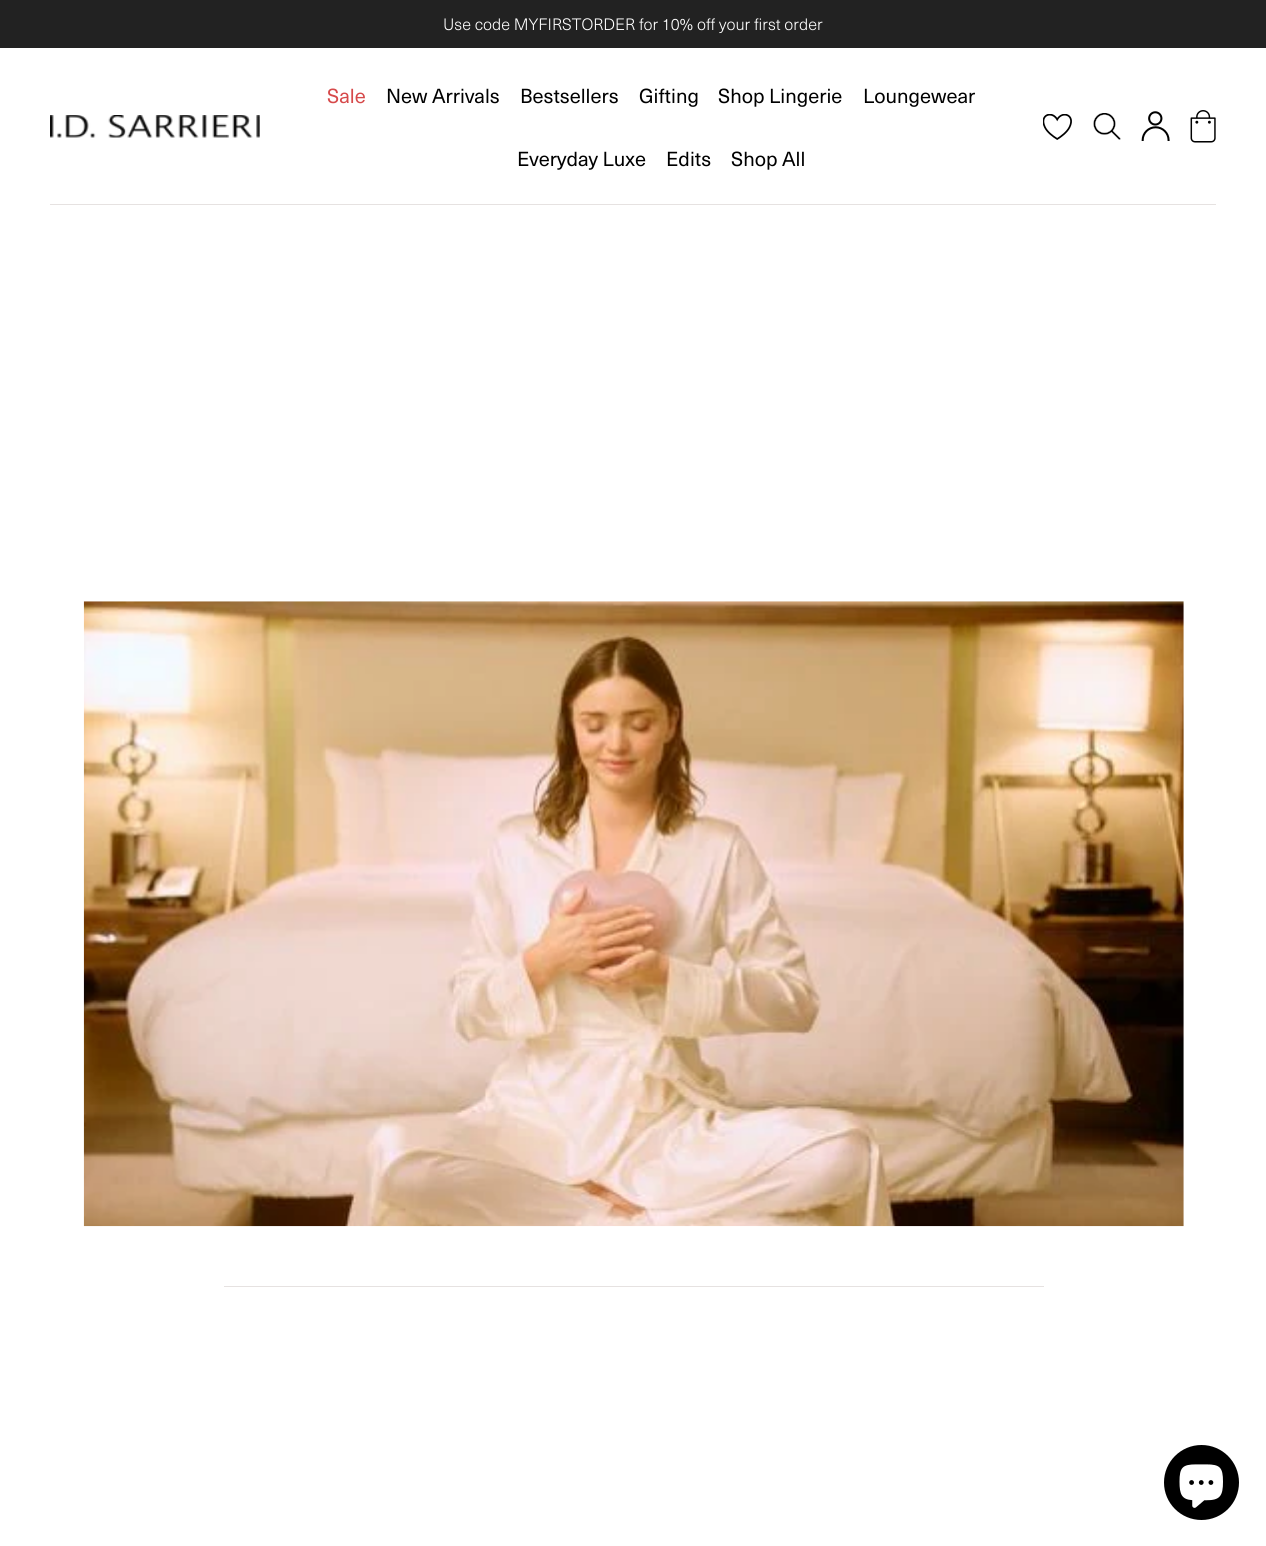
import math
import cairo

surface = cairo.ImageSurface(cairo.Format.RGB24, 1266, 1546)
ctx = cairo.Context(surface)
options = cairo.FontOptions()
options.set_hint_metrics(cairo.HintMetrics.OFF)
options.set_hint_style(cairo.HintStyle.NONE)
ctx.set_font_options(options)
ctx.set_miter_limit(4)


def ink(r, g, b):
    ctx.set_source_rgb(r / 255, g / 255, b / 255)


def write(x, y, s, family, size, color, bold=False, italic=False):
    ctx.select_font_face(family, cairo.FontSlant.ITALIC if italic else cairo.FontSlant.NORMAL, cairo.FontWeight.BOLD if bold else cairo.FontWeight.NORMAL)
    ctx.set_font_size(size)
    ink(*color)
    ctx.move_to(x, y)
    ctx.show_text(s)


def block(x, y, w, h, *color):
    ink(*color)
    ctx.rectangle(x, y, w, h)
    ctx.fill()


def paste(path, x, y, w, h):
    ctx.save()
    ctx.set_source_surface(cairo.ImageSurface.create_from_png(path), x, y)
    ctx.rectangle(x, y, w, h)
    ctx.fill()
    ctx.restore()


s1 = dict(family="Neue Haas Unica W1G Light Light", size=16.25, color=(255, 255, 255))
s2 = dict(family="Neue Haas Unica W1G", size=20, color=(214, 73, 74))
s3 = dict(family="Neue Haas Unica W1G", size=20, color=(0, 0, 0))

ink(255, 255, 255)
ctx.paint()
block(0, 0, 1266, 48, 34, 34, 34)
write(443, 30, "Use code MYFIRSTORDER for 10% off your first order", **s1)
paste("pic1.png", 50, 115, 210, 23)
write(327, 103, "Sale", **s2)
write(386, 103, "New Arrivals", **s3)
write(520, 103, "Bestsellers", **s3)
write(639, 103, "Gifting", **s3)
write(718, 103, "Shop Lingerie", **s3)
write(863, 103, "Loungewear", **s3)
write(517, 166, "Everyday Luxe", **s3)
write(666, 166, "Edits", **s3)
write(731, 166, "Shop All", **s3)
paste("pic2.png", 1043, 114, 29, 26)
paste("pic3.png", 1093, 113, 28, 27)
paste("pic4.png", 1141, 111, 29, 30)
paste("pic5.png", 1190, 110, 26, 33)
block(50, 204, 1166, 1, 230, 226, 225)
paste("pic6.png", 83, 601, 1101, 626)
block(224, 1286, 820, 1, 230, 226, 225)
ink(0, 0, 0)
ctx.arc(1201.5, 1482.5, 37.5, 0, 2 * math.pi)
ctx.fill()
paste("pic7.png", 1179, 1464, 44, 44)
surface.write_to_png("screenshot.png")
